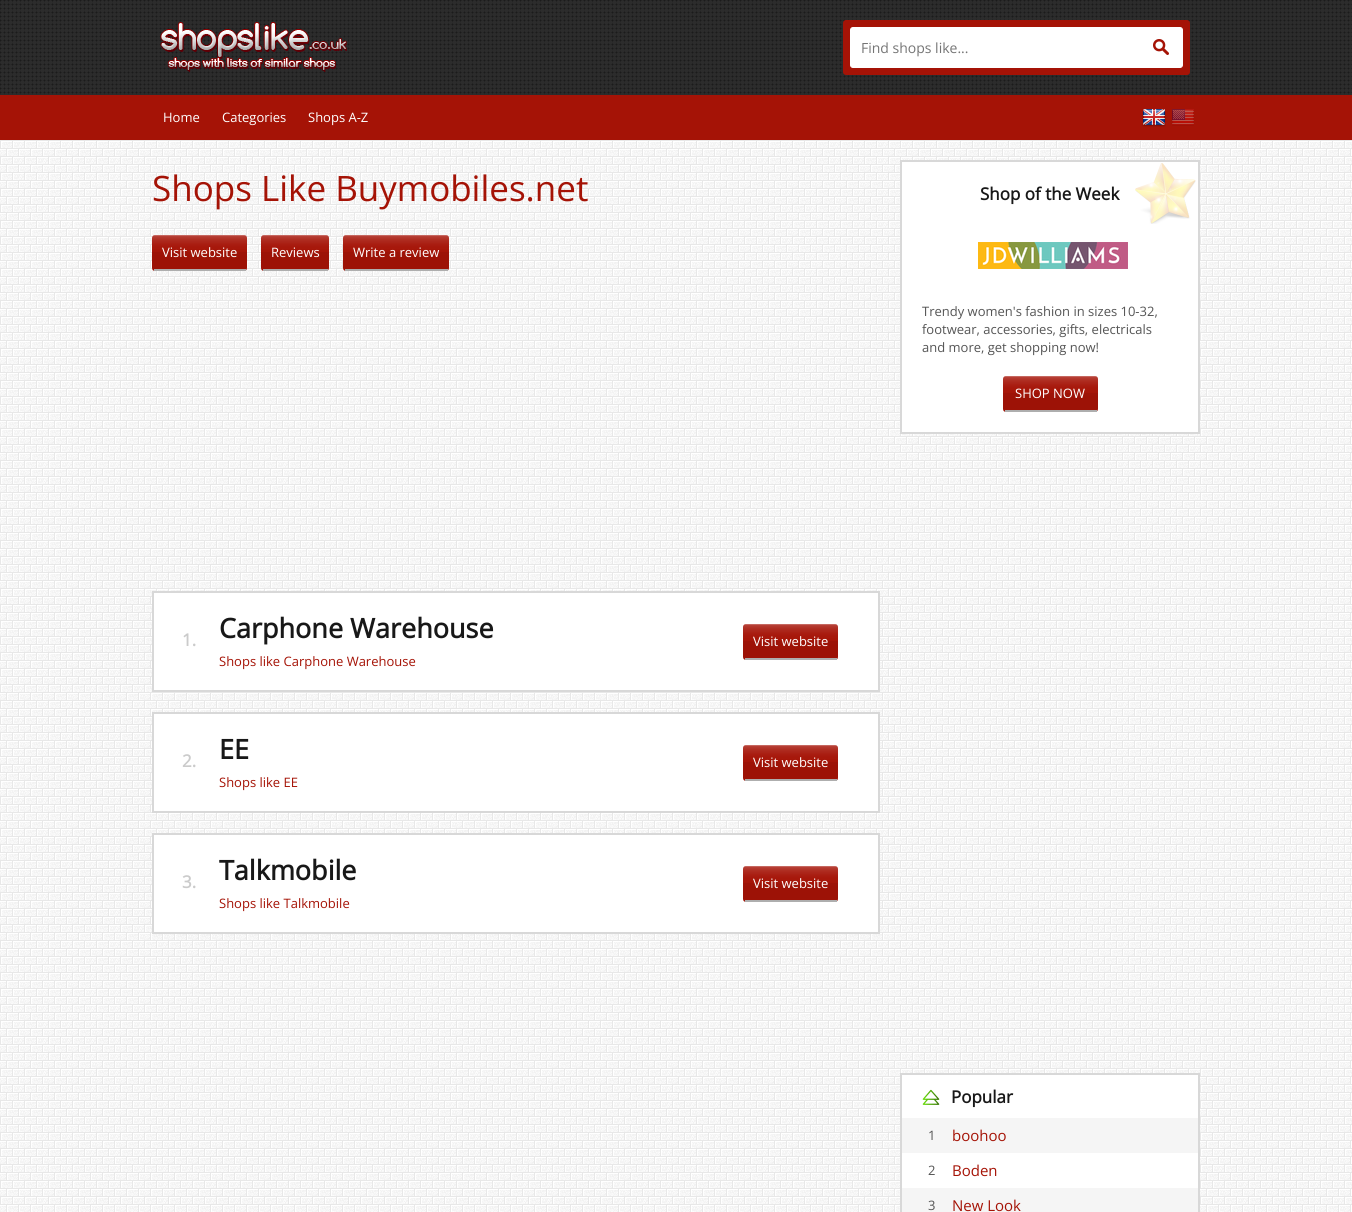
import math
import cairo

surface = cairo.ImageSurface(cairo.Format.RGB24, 1352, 1212)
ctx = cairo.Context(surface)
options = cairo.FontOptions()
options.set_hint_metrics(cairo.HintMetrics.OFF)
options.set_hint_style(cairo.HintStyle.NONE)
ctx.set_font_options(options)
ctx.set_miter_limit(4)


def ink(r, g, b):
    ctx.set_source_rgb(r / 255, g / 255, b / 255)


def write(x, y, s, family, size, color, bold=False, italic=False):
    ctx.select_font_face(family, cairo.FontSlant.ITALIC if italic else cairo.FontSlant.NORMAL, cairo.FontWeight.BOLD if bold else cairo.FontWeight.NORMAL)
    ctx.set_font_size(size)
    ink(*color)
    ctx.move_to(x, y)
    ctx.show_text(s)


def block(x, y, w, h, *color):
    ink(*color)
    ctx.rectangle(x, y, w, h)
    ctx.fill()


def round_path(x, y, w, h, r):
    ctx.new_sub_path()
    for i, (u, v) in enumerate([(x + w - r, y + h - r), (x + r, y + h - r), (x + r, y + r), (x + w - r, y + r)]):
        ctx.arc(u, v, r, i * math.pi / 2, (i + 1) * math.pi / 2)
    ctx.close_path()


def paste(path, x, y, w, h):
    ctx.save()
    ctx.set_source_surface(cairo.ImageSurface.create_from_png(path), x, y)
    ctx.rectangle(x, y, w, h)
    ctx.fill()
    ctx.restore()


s1 = dict(family="Open Sans", size=14, color=(117, 117, 117))
s2 = dict(family="Open Sans", size=13, color=(255, 255, 255))
s3 = dict(family="Open Sans", size=35, color=(165, 19, 6))
s4 = dict(family="Open Sans", size=17, color=(203, 203, 203), bold=True)
s5 = dict(family="Open Sans", size=27, color=(24, 24, 24), bold=True)
s6 = dict(family="Open Sans", size=13, color=(165, 19, 6))
s7 = dict(family="Open Sans", size=17, color=(24, 24, 24), bold=True)
s8 = dict(family="Open Sans", size=13, color=(85, 85, 85))
s9 = dict(family="Open Sans", size=15, color=(165, 19, 6))

ink(24, 24, 24)
ctx.paint()
paste("pic1.png", 0, 0, 1352, 95)
paste("pic2.png", 160, 22, 187, 50)
ink(165, 19, 6)
round_path(843, 20, 347, 55, 3)
ctx.fill()
ink(255, 255, 255)
round_path(850.5, 27.5, 332, 40, 2.5)
ctx.fill_preserve()
ctx.set_line_width(1)
ctx.stroke()
write(861, 53, "Find shops like...", **s1)
paste("pic3.png", 1153, 39, 16, 16)
block(0, 95, 1352, 45, 165, 19, 6)
write(163, 122, "Home", **s2)
write(222, 122, "Categories", **s2)
write(308, 122, "Shops A-Z", **s2)
paste("pic4.png", 1142, 109, 24, 18)
paste("pic5.png", 1172, 109, 22, 17)
paste("pic6.png", 0, 140, 1352, 1072)
write(152, 201, "Shops Like Buymobiles.net", **s3)
round_path(152, 235, 95, 36, 3)
ctx.fill()
paste("pic7.png", 152, 235, 95, 36)
block(154, 269, 92, 2, 174, 174, 174)
write(162, 257, "Visit website", **s2)
ink(165, 19, 6)
round_path(261, 235, 68, 36, 3)
ctx.fill()
paste("pic8.png", 261, 235, 68, 36)
block(263, 269, 65, 2, 174, 174, 174)
write(271, 257, "Reviews", **s2)
ink(165, 19, 6)
round_path(343, 235, 106, 36, 3)
ctx.fill()
paste("pic9.png", 343, 235, 106, 36)
block(345, 269, 103, 2, 174, 174, 174)
write(353, 257, "Write a review", **s2)
ctx.rectangle(153, 592, 726, 99)
ctx.fill_preserve()
ink(216, 216, 216)
ctx.set_line_width(2)
ctx.stroke()
write(182, 646, "1.", **s4)
write(219, 638, "Carphone Warehouse", **s5)
write(219, 666, "Shops like Carphone Warehouse", **s6)
round_path(743, 624, 95, 36, 3)
ctx.fill()
paste("pic10.png", 743, 624, 95, 36)
block(745, 658, 92, 2, 174, 174, 174)
write(753, 646, "Visit website", **s2)
ctx.rectangle(153, 713, 726, 99)
ctx.fill_preserve()
ink(216, 216, 216)
ctx.stroke()
write(182, 767, "2.", **s4)
write(219, 759, "EE", **s5)
write(219, 787, "Shops like EE", **s6)
round_path(743, 745, 95, 36, 3)
ctx.fill()
paste("pic10.png", 743, 745, 95, 36)
block(745, 779, 92, 2, 174, 174, 174)
write(753, 767, "Visit website", **s2)
ctx.rectangle(153, 834, 726, 99)
ctx.fill_preserve()
ink(216, 216, 216)
ctx.stroke()
write(182, 888, "3.", **s4)
write(219, 880, "Talkmobile", **s5)
write(219, 908, "Shops like Talkmobile", **s6)
round_path(743, 866, 95, 36, 3)
ctx.fill()
paste("pic10.png", 743, 866, 95, 36)
block(745, 900, 92, 2, 174, 174, 174)
write(753, 888, "Visit website", **s2)
block(902, 162, 296, 270, 255, 255, 255)
paste("pic11.png", 1135, 163, 61, 61)
ctx.rectangle(901, 161, 298, 272)
ink(216, 216, 216)
ctx.stroke()
write(980, 200, "Shop of the Week", **s7)
paste("pic12.png", 978, 242, 150, 27)
write(922, 316, "Trendy women's fashion in sizes 10-32,", **s8)
write(922, 334, "footwear, accessories, gifts, electricals", **s8)
write(922, 352, "and more, get shopping now!", **s8)
ink(165, 19, 6)
round_path(1003, 376, 95, 36, 3)
ctx.fill()
paste("pic10.png", 1003, 376, 95, 36)
block(1005, 410, 92, 2, 174, 174, 174)
write(1015, 398, "SHOP NOW", **s2)
block(902, 1075, 296, 113, 255, 255, 255)
ctx.rectangle(901, 1074, 298, 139)
ink(216, 216, 216)
ctx.stroke()
paste("pic13.png", 922, 1089, 18, 16)
write(951, 1103, "Popular", **s7)
block(902, 1118, 296, 35, 245, 245, 245)
write(928, 1140, "1", **s8)
write(952, 1141, "boohoo", **s9)
write(928, 1175, "2", **s8)
write(952, 1176, "Boden", **s9)
block(902, 1188, 296, 24, 245, 245, 245)
write(928, 1210, "3", **s8)
write(952, 1211, "New Look", **s9)
surface.write_to_png("screenshot.png")
